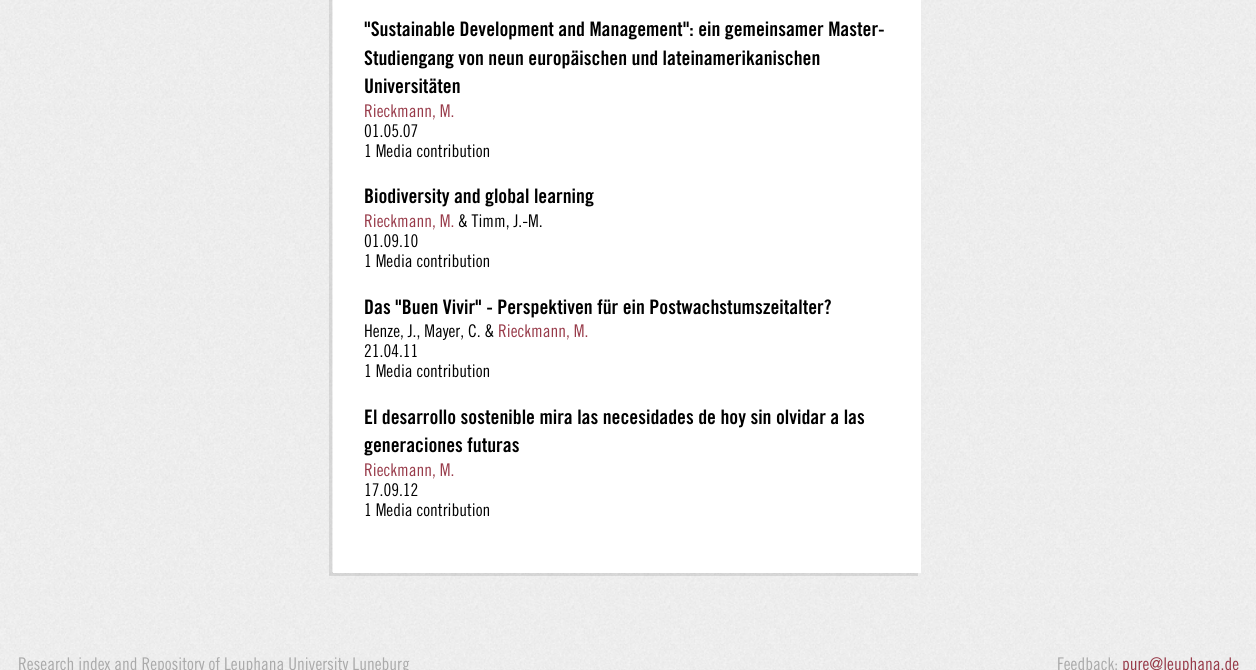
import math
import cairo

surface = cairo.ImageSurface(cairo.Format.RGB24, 1256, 670)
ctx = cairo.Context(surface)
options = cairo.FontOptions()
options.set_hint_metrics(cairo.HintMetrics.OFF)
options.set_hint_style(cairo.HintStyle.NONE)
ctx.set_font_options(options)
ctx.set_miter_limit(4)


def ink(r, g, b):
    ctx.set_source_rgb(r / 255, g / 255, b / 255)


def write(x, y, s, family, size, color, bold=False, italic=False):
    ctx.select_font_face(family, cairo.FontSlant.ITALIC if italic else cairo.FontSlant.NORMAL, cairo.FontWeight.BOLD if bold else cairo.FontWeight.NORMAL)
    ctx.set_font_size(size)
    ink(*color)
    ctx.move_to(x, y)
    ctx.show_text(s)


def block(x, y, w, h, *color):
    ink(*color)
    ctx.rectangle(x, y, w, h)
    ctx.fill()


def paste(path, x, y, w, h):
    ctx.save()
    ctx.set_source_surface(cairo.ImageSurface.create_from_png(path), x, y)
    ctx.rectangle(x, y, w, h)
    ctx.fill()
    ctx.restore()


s1 = dict(family="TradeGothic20", size=20, color=(0, 0, 0), bold=True)
s2 = dict(family="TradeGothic", size=17.5, color=(151, 57, 72))
s3 = dict(family="TradeGothic", size=17.5, color=(0, 0, 0))
s4 = dict(family="TradeGothic", size=17.5, color=(170, 170, 170))

ink(255, 255, 255)
ctx.paint()
paste("pic1.png", 0, 0, 1256, 670)
ctx.set_source_rgba(0, 0, 0, 0.1)
ctx.new_path()
ctx.move_to(329, -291)
ctx.line_to(329, 576)
ctx.line_to(918, 576)
ctx.line_to(918, 572)
ctx.line_to(332, 572)
ctx.line_to(332, -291)
ctx.close_path()
ctx.fill()
block(333, 0, 588, 573, 255, 255, 255)
write(364, 36, "\"Sustainable Development and Management\": ein gemeinsamer Master-", **s1)
write(364, 65, "Studiengang von neun europäischen und lateinamerikanischen", **s1)
write(364, 93, "Universitäten", **s1)
write(364, 117, "Rieckmann, M.", **s2)
write(364, 137, "01.05.07", **s3)
write(364, 157, "1 Media contribution", **s3)
write(364, 203, "Biodiversity and global learning", **s1)
write(364, 227, "Rieckmann, M.", **s2)
write(458, 227, "& Timm, J.-M.", **s3)
write(364, 247, "01.09.10", **s3)
write(364, 267, "1 Media contribution", **s3)
write(364, 314, "Das \"Buen Vivir\" - Perspektiven für ein Postwachstumszeitalter?", **s1)
write(364, 337, "Henze, J., Mayer, C. &", **s3)
write(498, 337, "Rieckmann, M.", **s2)
write(364, 357, "21.04.11", **s3)
write(364, 377, "1 Media contribution", **s3)
write(364, 424, "El desarrollo sostenible mira las necesidades de hoy sin olvidar a las", **s1)
write(364, 452, "generaciones futuras", **s1)
write(364, 476, "Rieckmann, M.", **s2)
write(364, 496, "17.09.12", **s3)
write(364, 516, "1 Media contribution", **s3)
write(18, 670, "Research index and Repository of Leuphana University Luneburg", **s4)
write(1057, 670, "Feedback:", **s4)
write(1122, 670, "pure@leuphana.de", **s2)
surface.write_to_png("screenshot.png")
